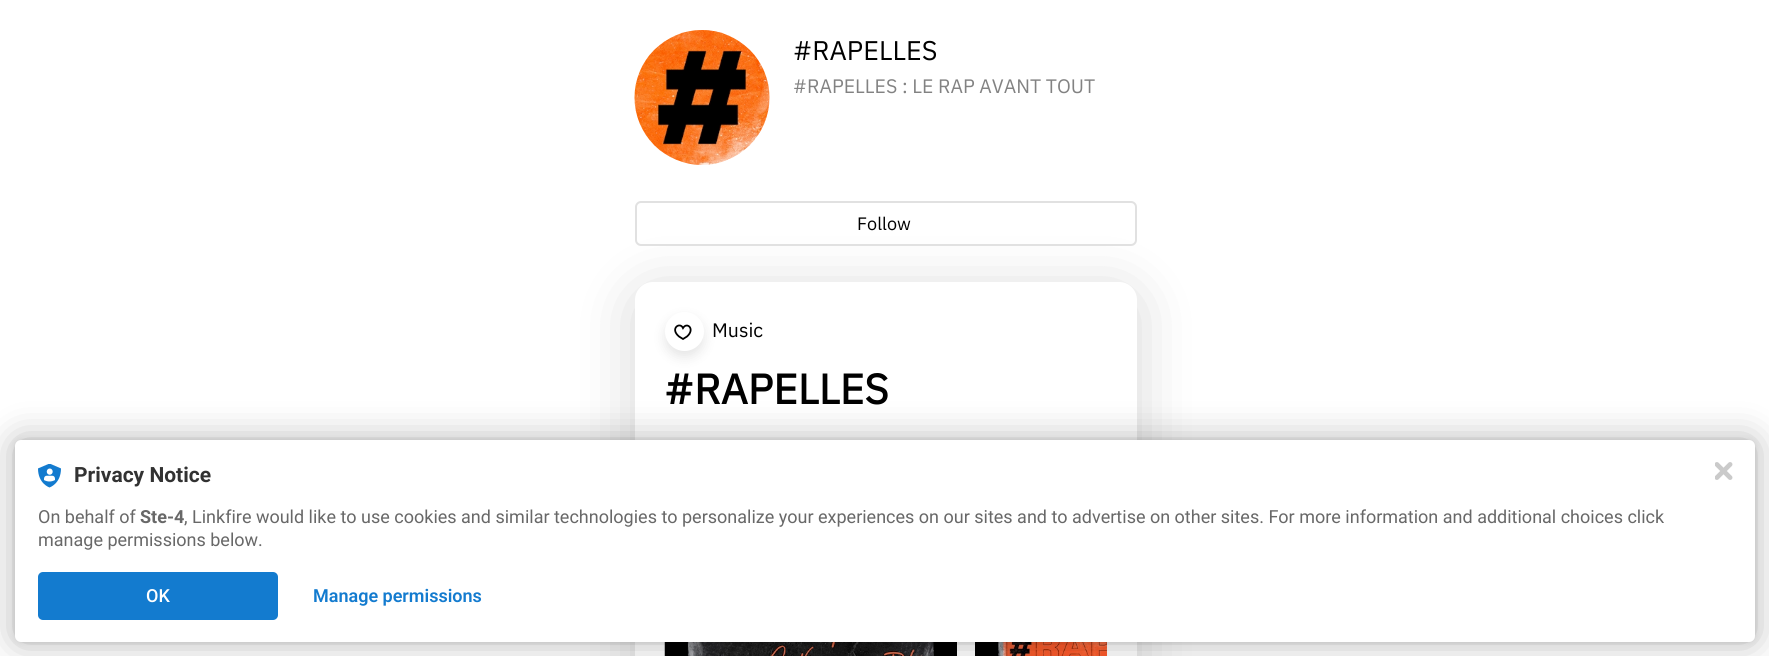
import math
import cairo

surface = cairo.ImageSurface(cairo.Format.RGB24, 1769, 656)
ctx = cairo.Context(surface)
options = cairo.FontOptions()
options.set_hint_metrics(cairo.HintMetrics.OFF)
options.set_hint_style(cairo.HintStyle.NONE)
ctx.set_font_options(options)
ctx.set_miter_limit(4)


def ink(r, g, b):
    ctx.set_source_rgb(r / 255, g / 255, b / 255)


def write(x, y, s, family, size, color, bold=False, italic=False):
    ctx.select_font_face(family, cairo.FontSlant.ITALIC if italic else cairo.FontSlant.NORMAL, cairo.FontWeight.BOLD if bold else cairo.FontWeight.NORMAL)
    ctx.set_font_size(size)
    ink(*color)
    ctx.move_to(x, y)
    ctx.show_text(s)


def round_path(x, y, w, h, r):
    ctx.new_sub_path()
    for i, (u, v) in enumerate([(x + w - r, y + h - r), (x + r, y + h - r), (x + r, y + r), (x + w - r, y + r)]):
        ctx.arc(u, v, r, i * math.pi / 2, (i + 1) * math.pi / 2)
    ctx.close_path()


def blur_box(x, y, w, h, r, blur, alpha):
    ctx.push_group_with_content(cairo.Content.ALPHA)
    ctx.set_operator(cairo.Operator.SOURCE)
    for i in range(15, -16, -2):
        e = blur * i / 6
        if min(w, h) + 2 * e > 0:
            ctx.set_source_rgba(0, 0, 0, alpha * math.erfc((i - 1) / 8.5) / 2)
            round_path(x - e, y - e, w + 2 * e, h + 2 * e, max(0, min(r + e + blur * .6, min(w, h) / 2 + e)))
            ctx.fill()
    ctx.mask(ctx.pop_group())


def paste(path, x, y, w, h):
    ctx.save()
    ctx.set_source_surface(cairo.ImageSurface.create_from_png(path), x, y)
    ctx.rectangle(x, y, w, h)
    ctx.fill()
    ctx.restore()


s1 = dict(family="IBM Plex Sans", size=27, color=(0, 0, 0))
s2 = dict(family="IBM Plex Sans", size=19.5, color=(130, 130, 130))
s3 = dict(family="IBM Plex Sans", size=18, color=(0, 0, 0))
s4 = dict(family="IBM Plex Sans", size=19.5, color=(0, 0, 0))
s5 = dict(family="IBM Plex Sans", size=42, color=(0, 0, 0), bold=True)
s6 = dict(family="Roboto", size=21, color=(50, 50, 50), bold=True)
s7 = dict(family="Roboto", size=18, color=(104, 104, 104))
s8 = dict(family="Roboto", size=18, color=(104, 104, 104), bold=True)
s9 = dict(family="Roboto Medium", size=18, color=(255, 255, 255))
s10 = dict(family="Roboto SemiBold", size=18, color=(19, 123, 207))

ink(255, 255, 255)
ctx.paint()
paste("pic1.png", 634, 30, 136, 135)
write(793, 60, "#RAPELLES", **s1)
write(793, 93, "#RAPELLES : LE RAP AVANT TOUT", **s2)
ink(0, 0, 0)
blur_box(635, 291, 502, 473, 18, 30, 0.16)
round_path(636, 202, 500, 43, 5)
ink(225, 225, 225)
ctx.stroke()
write(857, 230, "Follow", **s3)
ink(255, 255, 255)
round_path(635, 282, 502, 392, 18)
ctx.fill()
ink(0, 0, 0)
blur_box(665, 318, 39, 39, 19.5, 6, 0.1)
ink(255, 255, 255)
ctx.arc(684.5, 331.5, 19.5, 0, 2 * math.pi)
ctx.fill()
ctx.new_path()
ctx.move_to(683, 339)
ctx.line_to(687, 336.5)
ctx.curve_to(695.5, 329, 687, 321.5, 683, 328)
ctx.curve_to(680, 321.5, 669.5, 328.5, 679, 336.5)
ctx.close_path()
ink(0, 0, 0)
ctx.set_line_width(1.8)
ctx.stroke()
write(712, 337, "Music", **s4)
write(664, 404, "#RAPELLES", **s5)
paste("pic2.png", 664, 642, 293, 14)
paste("pic3.png", 975, 642, 132, 14)
ink(0, 0, 0)
blur_box(15, 440, 1740, 202, 6, 3, 0.12)
blur_box(15, 440, 1740, 202, 6, 18, 0.3)
ink(255, 255, 255)
round_path(15, 440, 1740, 202, 6)
ctx.fill()
paste("pic4.png", 38, 464, 23, 24)
write(74, 482, "Privacy Notice", **s6)
write(38, 523, "On behalf of", **s7)
write(140, 523, "Ste-4", **s8)
write(184, 523, ", Linkfire would like to use cookies and similar technologies to personalize your experiences on our sites and to advertise on other sites. For more information and additional choices click", **s7)
write(38, 546, "manage permissions below.", **s7)
ink(19, 123, 207)
round_path(38, 572, 240, 48, 5)
ctx.fill()
write(146, 602, "OK", **s9)
write(313, 602, "Manage permissions", **s10)
paste("pic5.png", 1715, 462, 18, 18)
surface.write_to_png("screenshot.png")
